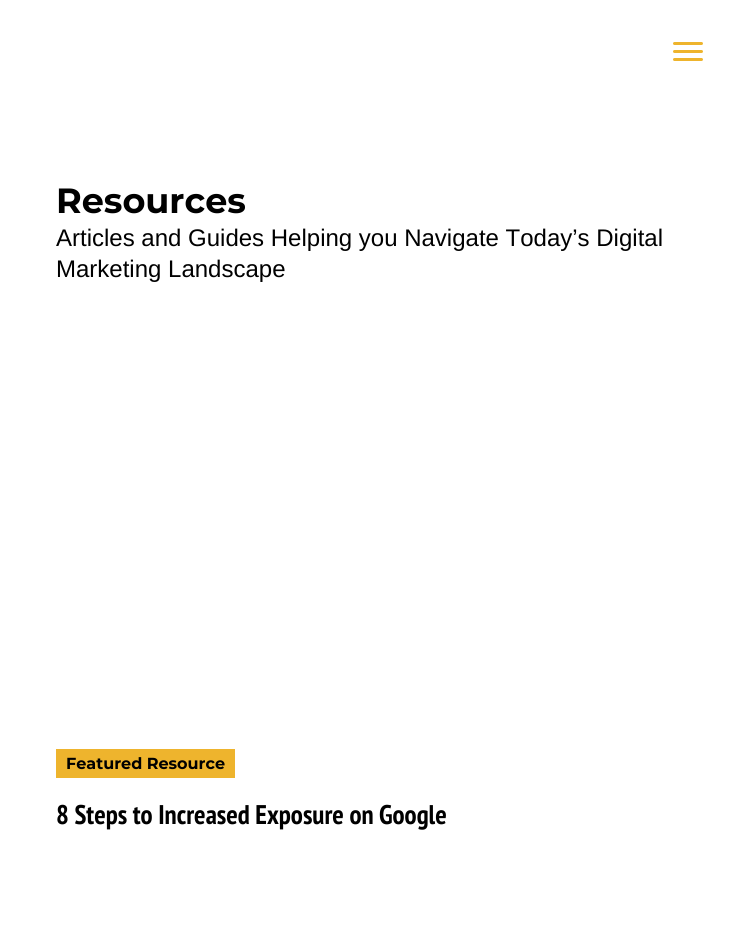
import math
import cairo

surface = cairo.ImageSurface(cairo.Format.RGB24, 751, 941)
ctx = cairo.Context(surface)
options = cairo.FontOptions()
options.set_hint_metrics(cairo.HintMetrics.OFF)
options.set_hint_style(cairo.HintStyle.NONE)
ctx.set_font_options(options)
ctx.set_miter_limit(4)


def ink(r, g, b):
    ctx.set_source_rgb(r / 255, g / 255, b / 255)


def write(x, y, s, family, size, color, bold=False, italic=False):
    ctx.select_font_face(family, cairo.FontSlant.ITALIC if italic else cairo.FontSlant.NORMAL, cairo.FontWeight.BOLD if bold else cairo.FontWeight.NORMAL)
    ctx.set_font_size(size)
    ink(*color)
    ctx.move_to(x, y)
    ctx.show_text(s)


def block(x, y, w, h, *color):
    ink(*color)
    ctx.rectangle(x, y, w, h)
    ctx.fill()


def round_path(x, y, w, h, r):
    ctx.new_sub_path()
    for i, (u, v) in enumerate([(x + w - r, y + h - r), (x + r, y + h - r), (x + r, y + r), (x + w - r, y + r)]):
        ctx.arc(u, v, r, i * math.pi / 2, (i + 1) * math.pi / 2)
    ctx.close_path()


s1 = dict(family="Montserrat", size=35, color=(0, 0, 0), bold=True)
s2 = dict(family="Liberation Sans", size=24, color=(0, 0, 0))
s3 = dict(family="Montserrat", size=16, color=(0, 0, 0), bold=True)
s4 = dict(family="PT Sans Narrow", size=27, color=(0, 0, 0), bold=True)

ink(255, 255, 255)
ctx.paint()
ink(238, 180, 45)
round_path(673, 50, 30, 3, 1.5)
ctx.fill()
round_path(673, 42, 30, 3, 1.5)
ctx.fill()
round_path(673, 58, 30, 3, 1.5)
ctx.fill()
write(56, 213, "Resources", **s1)
write(56, 246, "Articles and Guides Helping you Navigate Today’s Digital", **s2)
write(56, 277, "Marketing Landscape", **s2)
block(56, 749, 179, 29, 238, 180, 45)
write(66, 769, "Featured Resource", **s3)
write(56, 824, "8 Steps to Increased Exposure on Google", **s4)
surface.write_to_png("screenshot.png")
